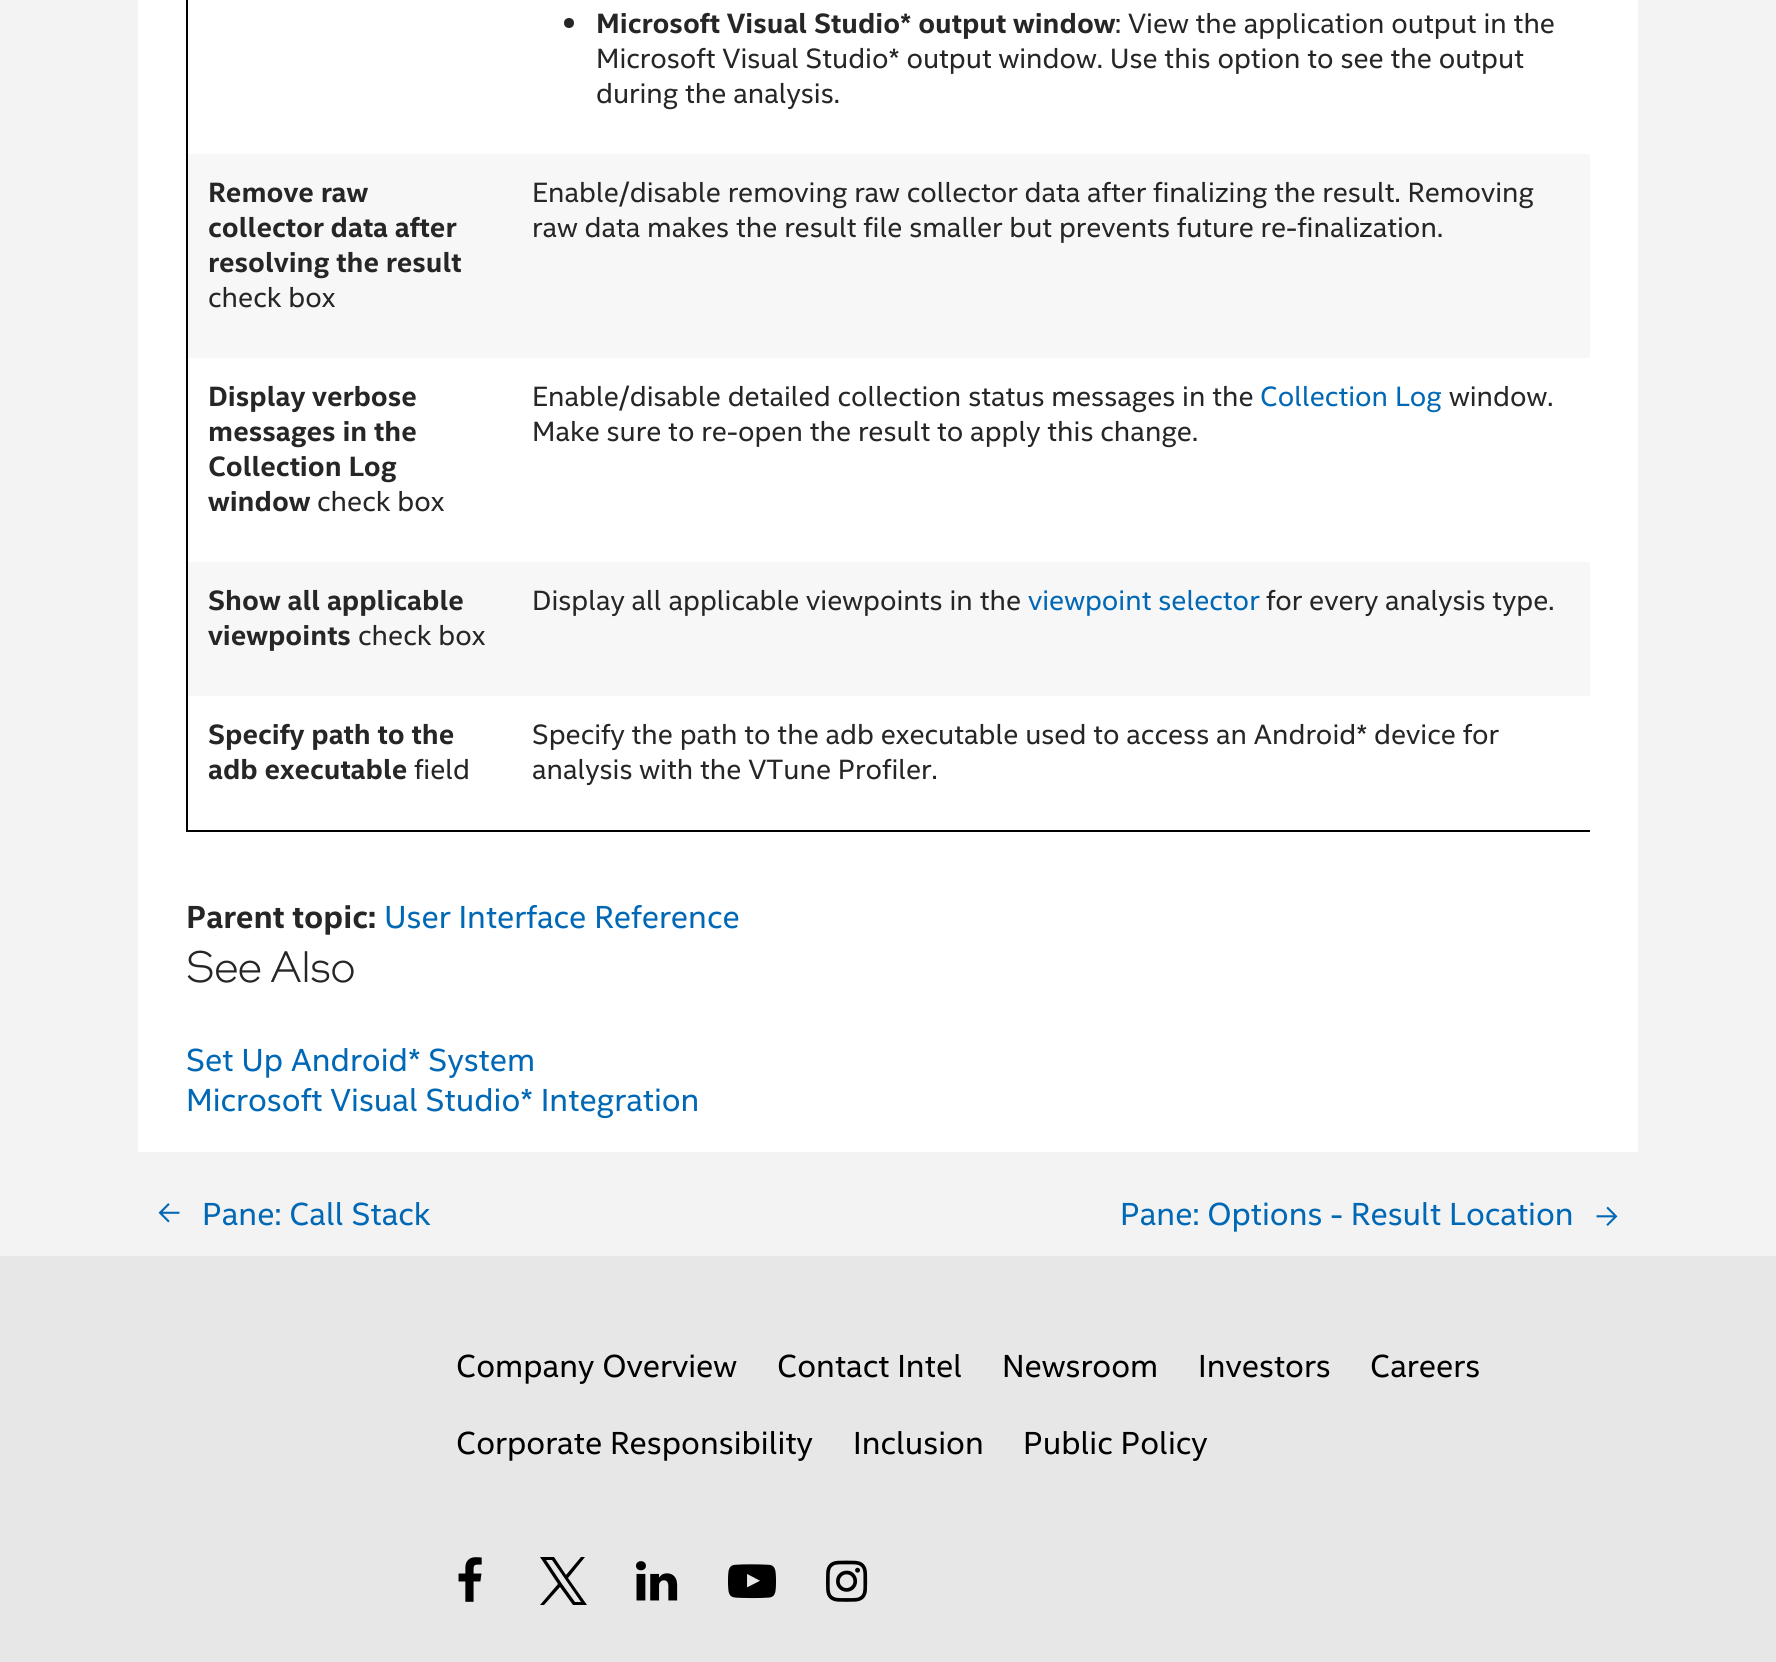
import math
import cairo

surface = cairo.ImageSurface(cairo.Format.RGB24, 1776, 1662)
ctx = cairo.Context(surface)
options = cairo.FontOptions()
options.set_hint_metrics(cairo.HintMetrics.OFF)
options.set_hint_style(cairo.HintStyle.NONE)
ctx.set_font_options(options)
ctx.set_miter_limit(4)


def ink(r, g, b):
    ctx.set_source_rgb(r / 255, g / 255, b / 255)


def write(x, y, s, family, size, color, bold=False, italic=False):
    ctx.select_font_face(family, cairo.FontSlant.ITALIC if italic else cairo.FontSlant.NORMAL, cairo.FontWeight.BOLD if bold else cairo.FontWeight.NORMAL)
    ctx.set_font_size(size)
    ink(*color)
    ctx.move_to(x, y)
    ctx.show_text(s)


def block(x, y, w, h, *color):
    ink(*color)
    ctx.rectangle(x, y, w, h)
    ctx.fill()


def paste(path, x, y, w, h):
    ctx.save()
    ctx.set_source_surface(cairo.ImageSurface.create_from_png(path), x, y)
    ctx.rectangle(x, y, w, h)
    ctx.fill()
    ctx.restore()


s1 = dict(family="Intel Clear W", size=28, color=(38, 38, 38), bold=True)
s2 = dict(family="Intel Clear W", size=28, color=(38, 38, 38))
s3 = dict(family="Intel Clear W", size=28, color=(0, 104, 181))
s4 = dict(family="Intel Clear W", size=32, color=(38, 38, 38), bold=True)
s5 = dict(family="Intel Clear W", size=32, color=(0, 104, 181))
s6 = dict(family="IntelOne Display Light", size=44, color=(38, 38, 38))
s7 = dict(family="Intel Clear W", size=32, color=(0, 0, 0))

ink(243, 243, 243)
ctx.paint()
block(138, 0, 1500, 1152, 255, 255, 255)
ink(38, 38, 38)
ctx.arc(569, 23, 5, 0, 2 * math.pi)
ctx.fill()
write(596, 33, "Microsoft Visual Studio* output window", **s1)
write(1115, 33, ": View the application output in the", **s2)
write(596, 68, "Microsoft Visual Studio* output window. Use this option to see the output", **s2)
write(596, 103, "during the analysis.", **s2)
block(188, 154, 1402, 204, 247, 247, 247)
write(208, 202, "Remove raw", **s1)
write(208, 237, "collector data after", **s1)
write(208, 272, "resolving the result", **s1)
write(208, 307, "check box", **s2)
write(532, 202, "Enable/disable removing raw collector data after finalizing the result. Removing", **s2)
write(532, 237, "raw data makes the result file smaller but prevents future re-finalization.", **s2)
write(208, 406, "Display verbose", **s1)
write(208, 441, "messages in the", **s1)
write(208, 476, "Collection Log", **s1)
write(208, 511, "window", **s1)
write(317, 511, "check box", **s2)
write(532, 406, "Enable/disable detailed collection status messages in the", **s2)
write(1260, 406, "Collection Log", **s3)
write(1449, 406, "window.", **s2)
write(532, 441, "Make sure to re-open the result to apply this change.", **s2)
block(188, 562, 1402, 134, 247, 247, 247)
write(208, 610, "Show all applicable", **s1)
write(208, 645, "viewpoints", **s1)
write(358, 645, "check box", **s2)
write(532, 610, "Display all applicable viewpoints in the", **s2)
write(1028, 610, "viewpoint selector", **s3)
write(1266, 610, "for every analysis type.", **s2)
block(186, 830, 1404, 2, 0, 0, 0)
block(186, 0, 2, 832, 0, 0, 0)
write(208, 744, "Specify path to the", **s1)
write(208, 779, "adb executable", **s1)
write(414, 779, "field", **s2)
write(532, 744, "Specify the path to the adb executable used to access an Android* device for", **s2)
write(532, 779, "analysis with the VTune Profiler.", **s2)
write(186, 928, "Parent topic:", **s4)
write(384, 928, "User Interface Reference", **s5)
write(186, 982, "See Also", **s6)
write(186, 1071, "Set Up Android* System", **s5)
write(186, 1111, "Microsoft Visual Studio* Integration", **s5)
paste("pic1.png", 158, 1203, 22, 20)
write(202, 1225, "Pane: Call Stack", **s5)
write(1120, 1225, "Pane: Options - Result Location", **s5)
paste("pic2.png", 1596, 1206, 22, 20)
block(0, 1256, 1776, 406, 231, 231, 231)
write(456, 1377, "Company Overview", **s7)
write(777, 1377, "Contact Intel", **s7)
write(1002, 1377, "Newsroom", **s7)
write(1198, 1377, "Investors", **s7)
write(1370, 1377, "Careers", **s7)
write(456, 1454, "Corporate Responsibility", **s7)
write(853, 1454, "Inclusion", **s7)
write(1023, 1454, "Public Policy", **s7)
paste("pic3.png", 458, 1557, 24, 45)
ctx.new_path()
ctx.move_to(568, 1578)
ctx.line_to(585, 1557)
ctx.line_to(581, 1557)
ctx.line_to(566, 1575)
ctx.line_to(554, 1557)
ctx.line_to(540, 1557)
ctx.line_to(558, 1584)
ctx.line_to(540, 1605)
ctx.line_to(544, 1605)
ctx.line_to(560, 1587)
ctx.line_to(573, 1605)
ctx.line_to(587, 1605)
ctx.close_path()
ctx.move_to(562, 1584)
ctx.line_to(546, 1560)
ctx.line_to(552, 1560)
ctx.line_to(581, 1602)
ctx.line_to(575, 1602)
ctx.close_path()
ctx.fill()
paste("pic4.png", 636, 1561, 42, 40)
paste("pic5.png", 728, 1564, 48, 35)
paste("pic6.png", 826, 1560, 42, 42)
surface.write_to_png("screenshot.png")
